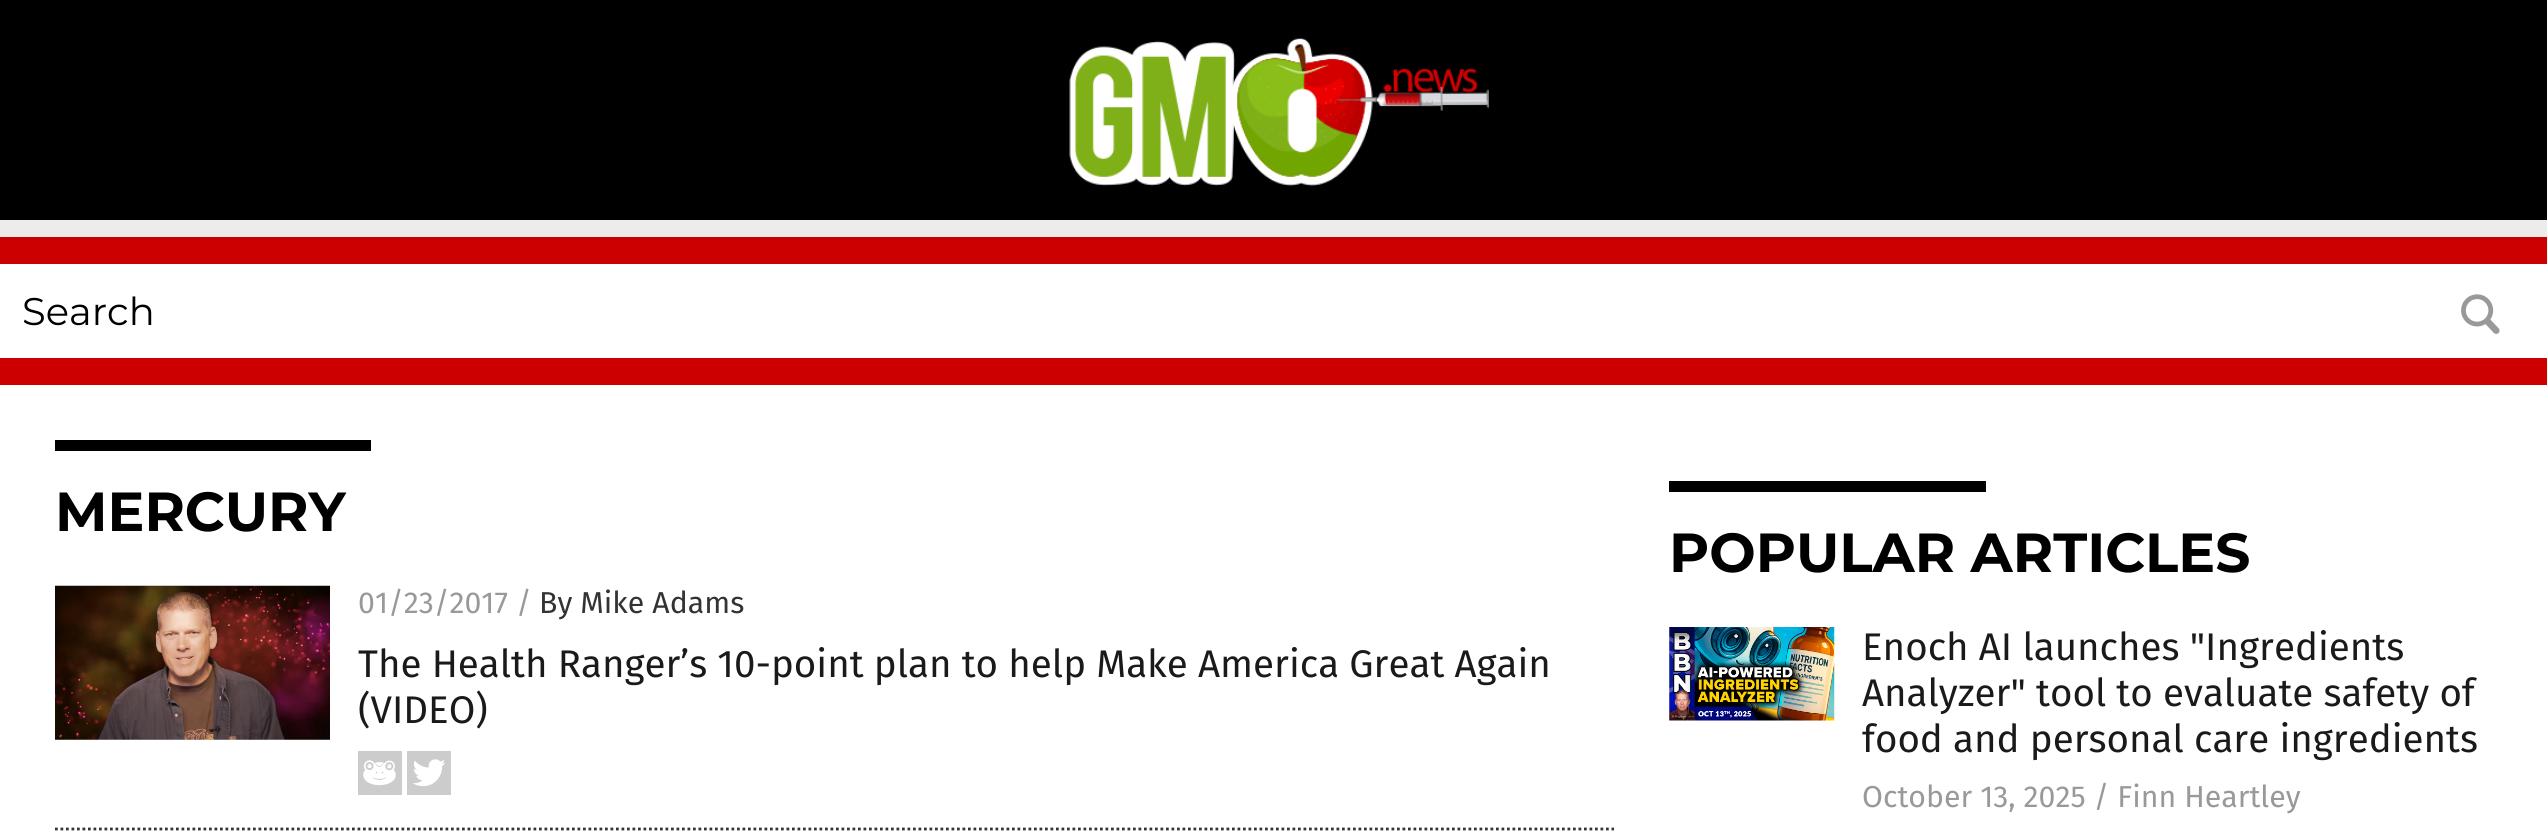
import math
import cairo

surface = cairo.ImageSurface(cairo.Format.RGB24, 2547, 832)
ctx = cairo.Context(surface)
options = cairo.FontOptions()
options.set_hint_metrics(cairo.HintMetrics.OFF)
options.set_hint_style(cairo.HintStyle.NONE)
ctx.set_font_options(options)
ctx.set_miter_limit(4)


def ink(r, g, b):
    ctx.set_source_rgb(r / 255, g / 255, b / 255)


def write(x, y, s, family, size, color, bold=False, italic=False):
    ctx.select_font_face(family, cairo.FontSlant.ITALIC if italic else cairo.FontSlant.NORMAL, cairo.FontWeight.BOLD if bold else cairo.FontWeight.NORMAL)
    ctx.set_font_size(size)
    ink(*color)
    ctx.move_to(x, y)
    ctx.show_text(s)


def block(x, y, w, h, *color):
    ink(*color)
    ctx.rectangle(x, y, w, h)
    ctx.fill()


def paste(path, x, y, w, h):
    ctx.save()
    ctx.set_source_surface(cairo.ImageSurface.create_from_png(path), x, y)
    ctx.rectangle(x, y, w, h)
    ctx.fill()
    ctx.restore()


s1 = dict(family="Montserrat", size=38.5, color=(0, 0, 0))
s2 = dict(family="Montserrat", size=55, color=(0, 0, 0), bold=True)
s3 = dict(family="Fira Sans", size=30.25, color=(153, 153, 153))
s4 = dict(family="Fira Sans", size=30.25, color=(51, 51, 51))
s5 = dict(family="Fira Sans", size=38.5, color=(26, 26, 26))

ink(204, 0, 0)
ctx.paint()
block(0, 0, 2547, 220, 0, 0, 0)
paste("pic1.png", 1069, 38, 420, 148)
block(0, 220, 2547, 17, 236, 236, 236)
block(0, 264, 2547, 94, 255, 255, 255)
write(22, 325, "Search", **s1)
paste("pic2.png", 2461, 294, 39, 40)
block(0, 385, 2547, 447, 255, 255, 255)
block(55, 440, 316, 11, 0, 0, 0)
write(55, 531, "MERCURY", **s2)
ctx.new_path()
ctx.move_to(55, 829)
ctx.line_to(1614, 829)
ink(52, 52, 52)
ctx.set_line_width(2.8)
ctx.set_dash([2.75, 2.75])
ctx.stroke()
paste("pic3.png", 55, 585, 275, 155)
write(358, 613, "01/23/2017 /", **s3)
write(539, 613, "By Mike Adams", **s4)
write(358, 677, "The Health Ranger’s 10-point plan to help Make America Great Again", **s5)
write(358, 723, "(VIDEO)", **s5)
paste("pic4.png", 358, 751, 44, 44)
paste("pic5.png", 407, 751, 44, 44)
block(1669, 481, 317, 11, 0, 0, 0)
write(1669, 572, "POPULAR ARTICLES", **s2)
paste("pic6.png", 1669, 627, 166, 94)
write(1862, 660, "Enoch AI launches \"Ingredients", **s5)
write(1862, 706, "Analyzer\" tool to evaluate safety of", **s5)
write(1862, 752, "food and personal care ingredients", **s5)
write(1862, 807, "October 13, 2025 / Finn Heartley", **s3)
surface.write_to_png("screenshot.png")
